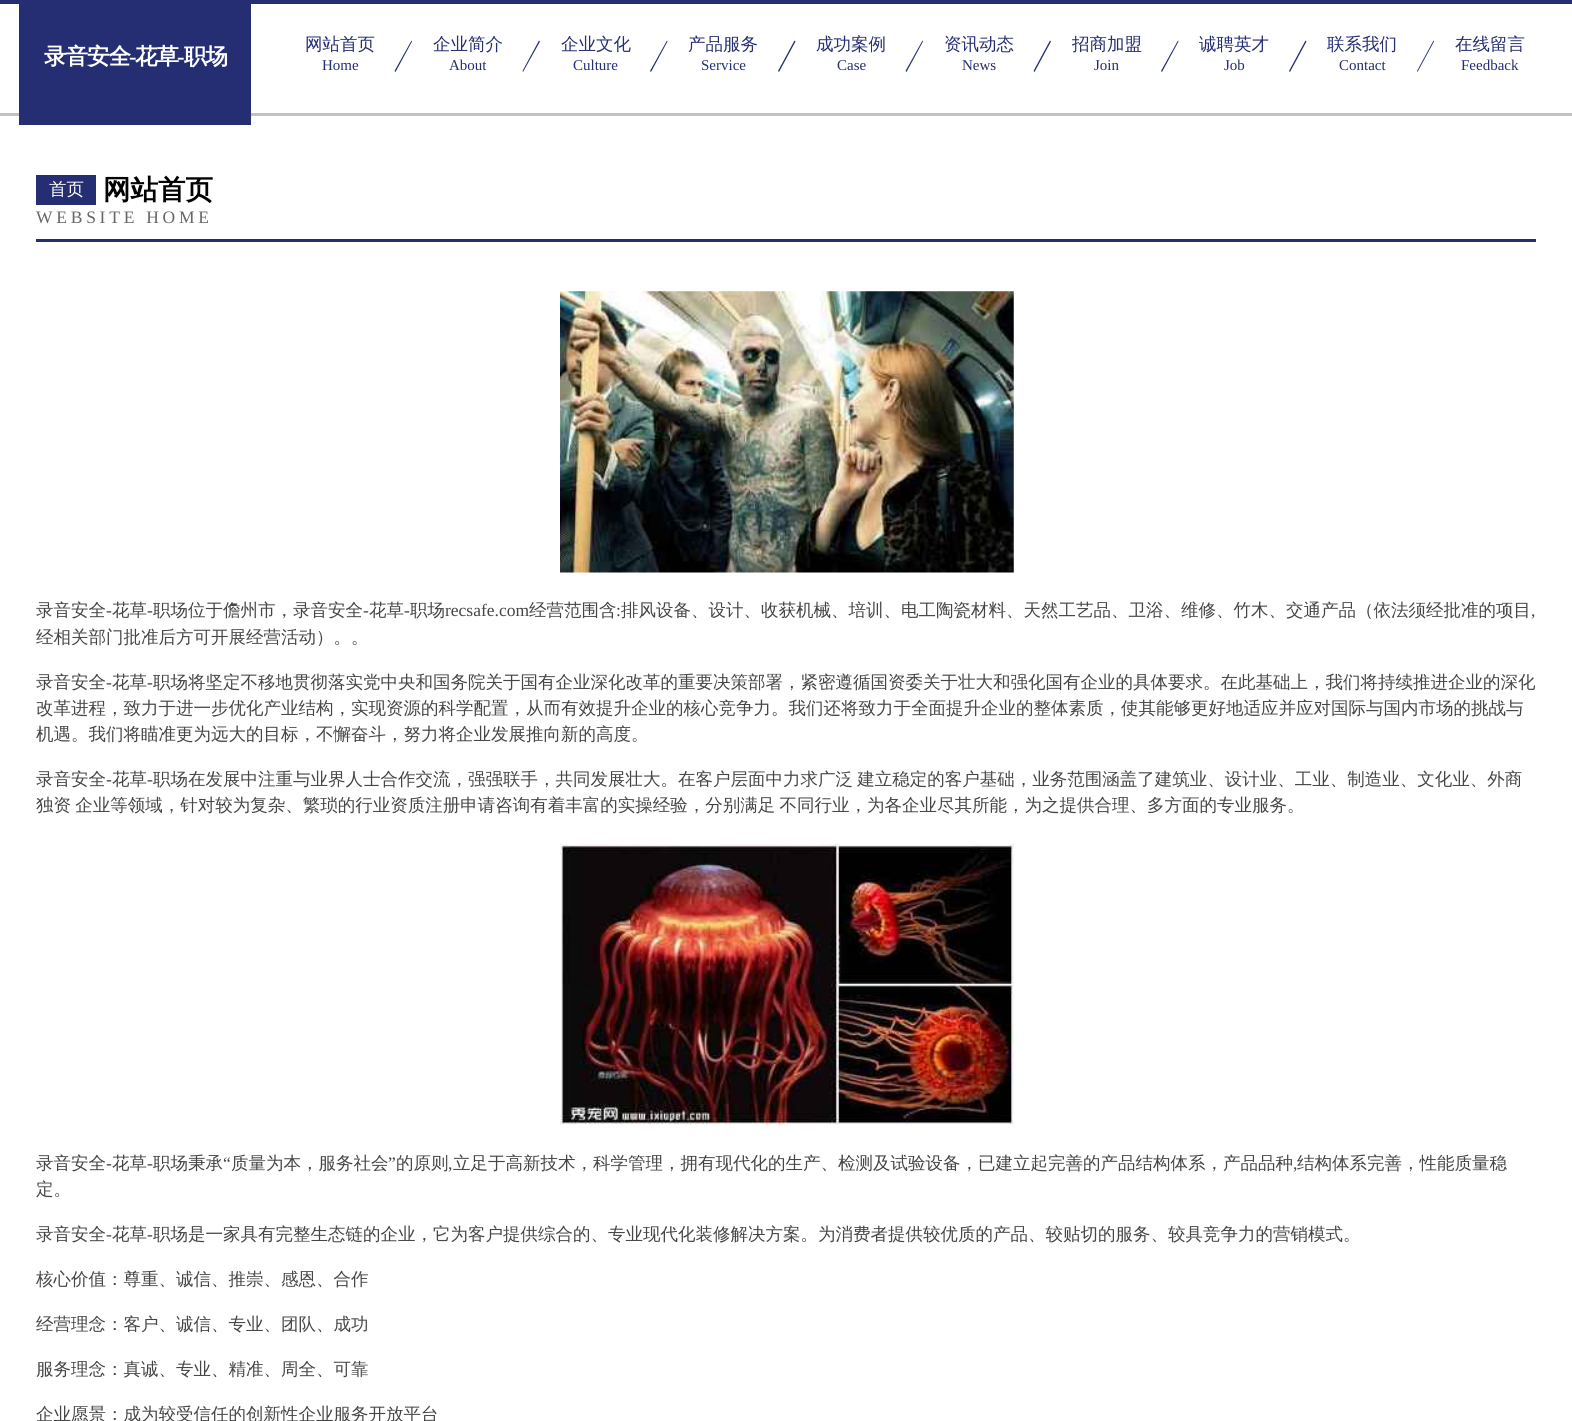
import math
import cairo

surface = cairo.ImageSurface(cairo.Format.RGB24, 1572, 1421)
ctx = cairo.Context(surface)
options = cairo.FontOptions()
options.set_hint_metrics(cairo.HintMetrics.OFF)
options.set_hint_style(cairo.HintStyle.NONE)
ctx.set_font_options(options)
ctx.set_miter_limit(4)


def ink(r, g, b):
    ctx.set_source_rgb(r / 255, g / 255, b / 255)


def write(x, y, s, family, size, color, bold=False, italic=False):
    ctx.select_font_face(family, cairo.FontSlant.ITALIC if italic else cairo.FontSlant.NORMAL, cairo.FontWeight.BOLD if bold else cairo.FontWeight.NORMAL)
    ctx.set_font_size(size)
    ink(*color)
    ctx.move_to(x, y)
    ctx.show_text(s)


def write_spaced(x, y, s, letter, word):
    ctx.move_to(x, y)
    for ch in s:
        ctx.show_text(ch)
        ctx.rel_move_to(letter + word * (ch == ' '), 0)


def block(x, y, w, h, *color):
    ink(*color)
    ctx.rectangle(x, y, w, h)
    ctx.fill()


def paste(path, x, y, w, h):
    ctx.save()
    ctx.set_source_surface(cairo.ImageSurface.create_from_png(path), x, y)
    ctx.rectangle(x, y, w, h)
    ctx.fill()
    ctx.restore()


s1 = dict(family="WenQuanYi Zen Hei Medium", size=17.5, color=(37, 46, 114))
s2 = dict(family="Liberation Serif", size=15, color=(37, 46, 114))
s3 = dict(family="WenQuanYi Zen Hei Medium", size=17.5, color=(255, 255, 255))
s4 = dict(family="WenQuanYi Zen Hei", size=27.5, color=(0, 0, 0), bold=True)
s5 = dict(family="WenQuanYi Zen Hei Medium", size=17.5, color=(69, 69, 69))
s6 = dict(family="Liberation Serif", size=17.5, color=(69, 69, 69))

ink(255, 255, 255)
ctx.paint()
block(0, 0, 1572, 4, 37, 46, 114)
block(0, 113, 1572, 3, 194, 194, 194)
block(19, 4, 232, 121, 37, 46, 114)
ctx.select_font_face("WenQuanYi Zen Hei", cairo.FontSlant.NORMAL, cairo.FontWeight.BOLD)
ctx.set_font_size(22.5)
ink(255, 255, 255)
write_spaced(44, 64, "录音安全", -1, 0)
ctx.select_font_face("Liberation Serif", cairo.FontSlant.NORMAL, cairo.FontWeight.BOLD)
write_spaced(129, 64, "-", -1, 0)
ctx.select_font_face("WenQuanYi Zen Hei", cairo.FontSlant.NORMAL, cairo.FontWeight.BOLD)
write_spaced(135, 64, "花草", -1, 0)
ctx.select_font_face("Liberation Serif", cairo.FontSlant.NORMAL, cairo.FontWeight.BOLD)
write_spaced(177, 64, "-", -1, 0)
ctx.select_font_face("WenQuanYi Zen Hei", cairo.FontSlant.NORMAL, cairo.FontWeight.BOLD)
write_spaced(184, 64, "职场", -1, 0)
write(305, 50, "网站首页", **s1)
ctx.new_path()
ctx.move_to(411.5, 40.5)
ctx.line_to(412, 41.5)
ctx.line_to(395.5, 72)
ctx.line_to(394.5, 71)
ctx.close_path()
ctx.fill()
write(322, 70, "Home", **s2)
write(433, 50, "企业简介", **s1)
ctx.new_path()
ctx.move_to(539, 40.5)
ctx.line_to(540, 41.5)
ctx.line_to(523, 72)
ctx.line_to(522.5, 71)
ctx.close_path()
ctx.fill()
write(449, 70, "About", **s2)
write(561, 50, "企业文化", **s1)
ctx.new_path()
ctx.move_to(667, 40.5)
ctx.line_to(667.5, 41.5)
ctx.line_to(651, 72)
ctx.line_to(650, 71)
ctx.close_path()
ctx.fill()
write(573, 70, "Culture", **s2)
write(688, 50, "产品服务", **s1)
ctx.new_path()
ctx.move_to(794.5, 40.5)
ctx.line_to(795.5, 41.5)
ctx.line_to(779, 72)
ctx.line_to(778, 71)
ctx.close_path()
ctx.fill()
write(701, 70, "Service", **s2)
write(816, 50, "成功案例", **s1)
ctx.new_path()
ctx.move_to(922.5, 40.5)
ctx.line_to(923, 41.5)
ctx.line_to(906.5, 72)
ctx.line_to(905.5, 71)
ctx.close_path()
ctx.fill()
write(837, 70, "Case", **s2)
write(944, 50, "资讯动态", **s1)
ctx.new_path()
ctx.move_to(1050, 40.5)
ctx.line_to(1051, 41.5)
ctx.line_to(1034.5, 72)
ctx.line_to(1033.5, 71)
ctx.close_path()
ctx.fill()
write(962, 70, "News", **s2)
write(1072, 50, "招商加盟", **s1)
ctx.new_path()
ctx.move_to(1178, 40.5)
ctx.line_to(1178.5, 41.5)
ctx.line_to(1162, 72)
ctx.line_to(1161, 71)
ctx.close_path()
ctx.fill()
write(1094, 70, "Join", **s2)
write(1199, 50, "诚聘英才", **s1)
ctx.new_path()
ctx.move_to(1305.5, 40.5)
ctx.line_to(1306.5, 41.5)
ctx.line_to(1290, 72)
ctx.line_to(1289, 71)
ctx.close_path()
ctx.fill()
write(1224, 70, "Job", **s2)
write(1327, 50, "联系我们", **s1)
ctx.new_path()
ctx.move_to(1433.5, 40.5)
ctx.line_to(1434, 41.5)
ctx.line_to(1417.5, 72)
ctx.line_to(1417, 71)
ctx.close_path()
ctx.fill()
write(1339, 70, "Contact", **s2)
write(1455, 50, "在线留言", **s1)
write(1461, 70, "Feedback", **s2)
block(36, 239, 1500, 3, 37, 46, 114)
block(36, 175, 60, 30, 37, 46, 114)
write(49, 195, "首页", **s3)
write(103, 199, "网站首页", **s4)
ctx.select_font_face("Liberation Serif")
ctx.set_font_size(17.5)
ink(102, 102, 102)
write_spaced(36, 223, "WEBSITE HOME", 3.75, 0)
paste("pic1.png", 560, 291, 454, 282)
write(36, 616, "录音安全", **s5)
write(106, 616, "-", **s6)
write(112, 616, "花草", **s5)
write(147, 616, "-", **s6)
write(153, 616, "职场位于儋州市，录音安全", **s5)
write(363, 616, "-", **s6)
write(369, 616, "花草", **s5)
write(404, 616, "-", **s6)
write(410, 616, "职场", **s5)
write(445, 616, "recsafe.com", **s6)
write(529, 616, "经营范围含", **s5)
write(616, 616, ":", **s6)
write(621, 616, "排风设备、设计、收获机械、培训、电工陶瓷材料、天然工艺品、卫浴、维修、竹木、交通产品（依法须经批准的项目", **s5)
write(1531, 616, ",", **s6)
write(36, 643, "经相关部门批准后方可开展经营活动）。。", **s5)
write(36, 688, "录音安全", **s5)
write(106, 688, "-", **s6)
write(112, 688, "花草", **s5)
write(147, 688, "-", **s6)
write(153, 688, "职场将坚定不移地贯彻落实党中央和国务院关于国有企业深化改革的重要决策部署，紧密遵循国资委关于壮大和强化国有企业的具体要求。在此基础上，我们将持续推进企业的深化", **s5)
write(36, 714, "改革进程，致力于进一步优化产业结构，实现资源的科学配置，从而有效提升企业的核心竞争力。我们还将致力于全面提升企业的整体素质，使其能够更好地适应并应对国际与国内市场的挑战与", **s5)
write(36, 740, "机遇。我们将瞄准更为远大的目标，不懈奋斗，努力将企业发展推向新的高度。", **s5)
write(36, 785, "录音安全", **s5)
write(106, 785, "-", **s6)
write(112, 785, "花草", **s5)
write(147, 785, "-", **s6)
ctx.select_font_face("WenQuanYi Zen Hei Medium")
write_spaced(153, 785, "职场在发展中注重与业界人士合作交流，强强联手，共同发展壮大。在客户层面中力求广泛 建立稳定的客户基础，业务范围涵盖了建筑业、设计业、工业、制造业、文化业、外商", 0, -1)
write_spaced(36, 811, "独资 企业等领域，针对较为复杂、繁琐的行业资质注册申请咨询有着丰富的实操经验，分别满足 不同行业，为各企业尽其所能，为之提供合理、多方面的专业服务。", 0, -1)
paste("pic2.png", 560, 843, 454, 282)
write(36, 1169, "录音安全", **s5)
write(112, 1169, "花草", **s5)
write(147, 1169, "-", **s6)
write(153, 1169, "职场秉承", **s5)
write(223, 1169, "“", **s6)
write(231, 1169, "质量为本，服务社会", **s5)
write(388, 1169, "”", **s6)
write(396, 1169, "的原则", **s5)
write(453, 1169, "立足于高新技术，科学管理，拥有现代化的生产、检测及试验设备，已建立起完善的产品结构体系，产品品种", **s5)
write(1297, 1169, "结构体系完善，性能质量稳", **s5)
write(106, 1169, "-", **s6)
write(448, 1169, ",", **s6)
write(1293, 1169, ",", **s6)
write(36, 1195, "定。", **s5)
write(36, 1240, "录音安全", **s5)
write(106, 1240, "-", **s6)
write(112, 1240, "花草", **s5)
write(147, 1240, "-", **s6)
write(153, 1240, "职场是一家具有完整生态链的企业，它为客户提供综合的、专业现代化装修解决方案。为消费者提供较优质的产品、较贴切的服务、较具竞争力的营销模式。", **s5)
write(36, 1285, "核心价值：尊重、诚信、推崇、感恩、合作", **s5)
write(36, 1330, "经营理念：客户、诚信、专业、团队、成功", **s5)
write(36, 1375, "服务理念：真诚、专业、精准、周全、可靠", **s5)
write(36, 1420, "企业愿景：成为较受信任的创新性企业服务开放平台", **s5)
surface.write_to_png("screenshot.png")
